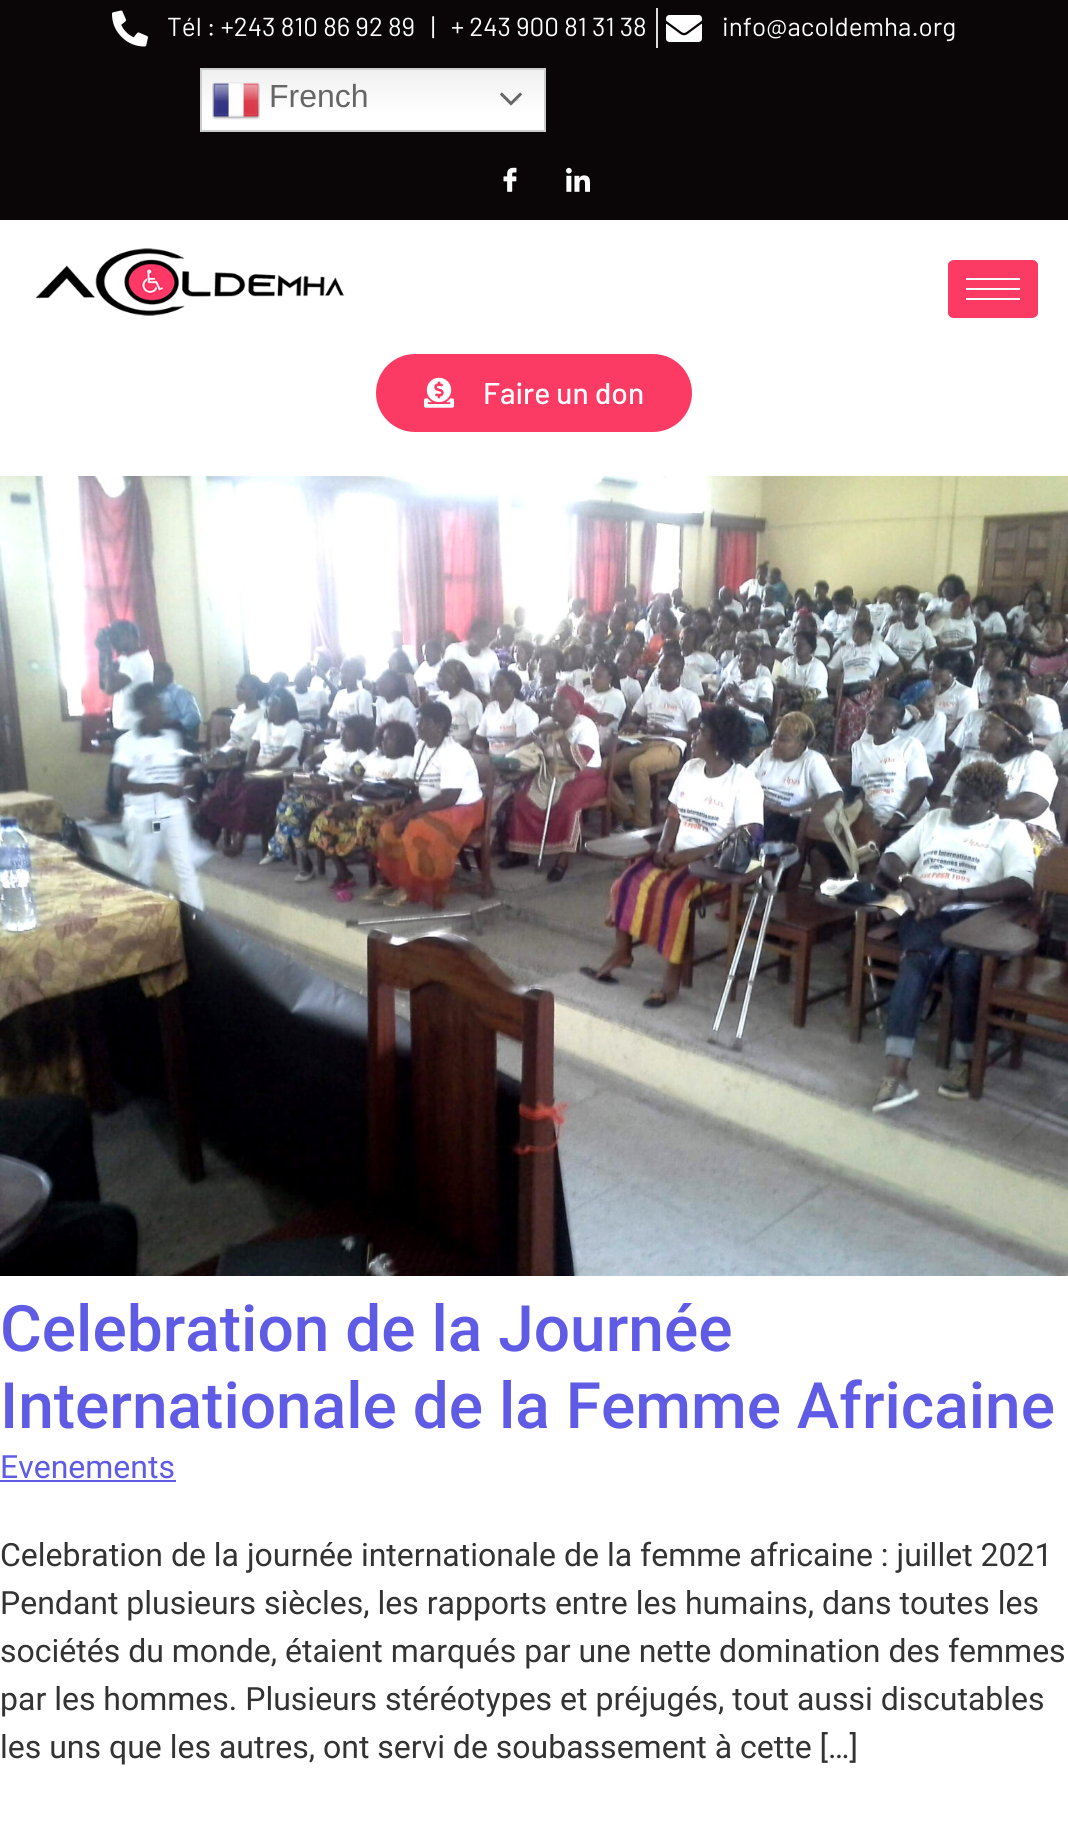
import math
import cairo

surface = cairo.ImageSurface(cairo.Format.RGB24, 1068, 1832)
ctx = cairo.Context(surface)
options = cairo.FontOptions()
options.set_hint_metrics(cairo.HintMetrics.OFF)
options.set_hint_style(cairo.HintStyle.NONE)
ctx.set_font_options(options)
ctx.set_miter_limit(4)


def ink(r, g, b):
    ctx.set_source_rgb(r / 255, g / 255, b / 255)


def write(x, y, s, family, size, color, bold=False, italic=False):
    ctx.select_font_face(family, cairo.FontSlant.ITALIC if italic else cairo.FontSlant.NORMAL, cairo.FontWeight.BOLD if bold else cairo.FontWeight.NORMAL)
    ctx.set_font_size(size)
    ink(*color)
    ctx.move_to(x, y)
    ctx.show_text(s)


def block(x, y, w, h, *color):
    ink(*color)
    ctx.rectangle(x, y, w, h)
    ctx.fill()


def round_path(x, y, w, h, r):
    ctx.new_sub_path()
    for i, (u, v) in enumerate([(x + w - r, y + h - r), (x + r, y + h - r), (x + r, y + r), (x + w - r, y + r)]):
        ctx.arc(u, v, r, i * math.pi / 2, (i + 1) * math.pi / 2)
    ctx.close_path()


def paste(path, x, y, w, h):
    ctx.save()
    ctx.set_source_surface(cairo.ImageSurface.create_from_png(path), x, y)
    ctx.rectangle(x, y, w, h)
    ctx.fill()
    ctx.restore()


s1 = dict(family="Barlow", size=26, color=(255, 255, 255))
s2 = dict(family="Liberation Sans", size=32, color=(102, 102, 102))
s3 = dict(family="Barlow Medium", size=30, color=(255, 255, 255))
s4 = dict(family="Roboto Medium", size=64, color=(96, 91, 229))
s5 = dict(family="Roboto", size=32, color=(96, 91, 229))
s6 = dict(family="Roboto", size=32, color=(51, 51, 51))

ink(255, 255, 255)
ctx.paint()
block(0, 0, 1068, 220, 10, 6, 7)
paste("pic1.png", 112, 10, 36, 37)
write(167, 36, "Tél : +243 810 86 92 89", **s1)
write(431, 36, "|", **s1)
write(451, 36, "+ 243 900 81 31 38", **s1)
block(656, 8, 2, 40, 221, 221, 221)
paste("pic2.png", 666, 15, 36, 27)
write(722, 36, "info@acoldemha.org", **s1)
gradient = cairo.LinearGradient(373, 68, 373, 132)
gradient.add_color_stop_rgba(0, 0.937, 0.937, 0.937, 1)
gradient.add_color_stop_rgba(0.7, 1, 1, 1, 1)
ctx.set_source(gradient)
ctx.rectangle(202, 70, 342, 60)
ctx.fill()
ctx.rectangle(201, 69, 344, 62)
ink(204, 204, 204)
ctx.stroke()
paste("pic3.png", 212, 82, 48, 38)
write(269, 107, "French", **s2)
paste("pic4.png", 500, 92, 22, 14)
paste("pic5.png", 503, 167, 14, 25)
paste("pic6.png", 566, 167, 24, 25)
paste("pic7.png", 35, 248, 310, 68)
ink(252, 59, 100)
round_path(948, 260, 90, 58, 6)
ctx.fill()
ctx.new_path()
ctx.move_to(954, 261)
ctx.line_to(1032, 261)
ctx.curve_to(1035, 261, 1037, 263, 1037, 266)
ctx.line_to(1037, 312)
ctx.curve_to(1037, 315, 1035, 317, 1032, 317)
ctx.line_to(954, 317)
ctx.curve_to(951, 317, 949, 315, 949, 312)
ctx.line_to(949, 266)
ctx.curve_to(949, 263, 951, 261, 954, 261)
ctx.close_path()
ctx.set_dash([6, 4])
ctx.stroke()
block(966, 278, 54, 2, 255, 255, 255)
block(966, 288, 54, 2, 255, 255, 255)
block(966, 298, 54, 2, 255, 255, 255)
ink(252, 59, 100)
round_path(376, 354, 316, 78, 39)
ctx.fill()
paste("pic8.png", 424, 377, 30, 31)
write(483, 404, "Faire un don", **s3)
paste("pic9.png", 0, 476, 1068, 800)
write(0, 1351, "Celebration de la Journée", **s4)
write(0, 1428, "Internationale de la Femme Africaine", **s4)
write(0, 1478, "Evenements", **s5)
block(0, 1480, 176, 2, 96, 91, 229)
write(0, 1566, "Celebration de la journée internationale de la femme africaine : juillet 2021", **s6)
write(0, 1614, "Pendant plusieurs siècles, les rapports entre les humains, dans toutes les", **s6)
write(0, 1662, "sociétés du monde, étaient marqués par une nette domination des femmes", **s6)
write(0, 1710, "par les hommes. Plusieurs stéréotypes et préjugés, tout aussi discutables", **s6)
write(0, 1758, "les uns que les autres, ont servi de soubassement à cette […]", **s6)
surface.write_to_png("screenshot.png")
